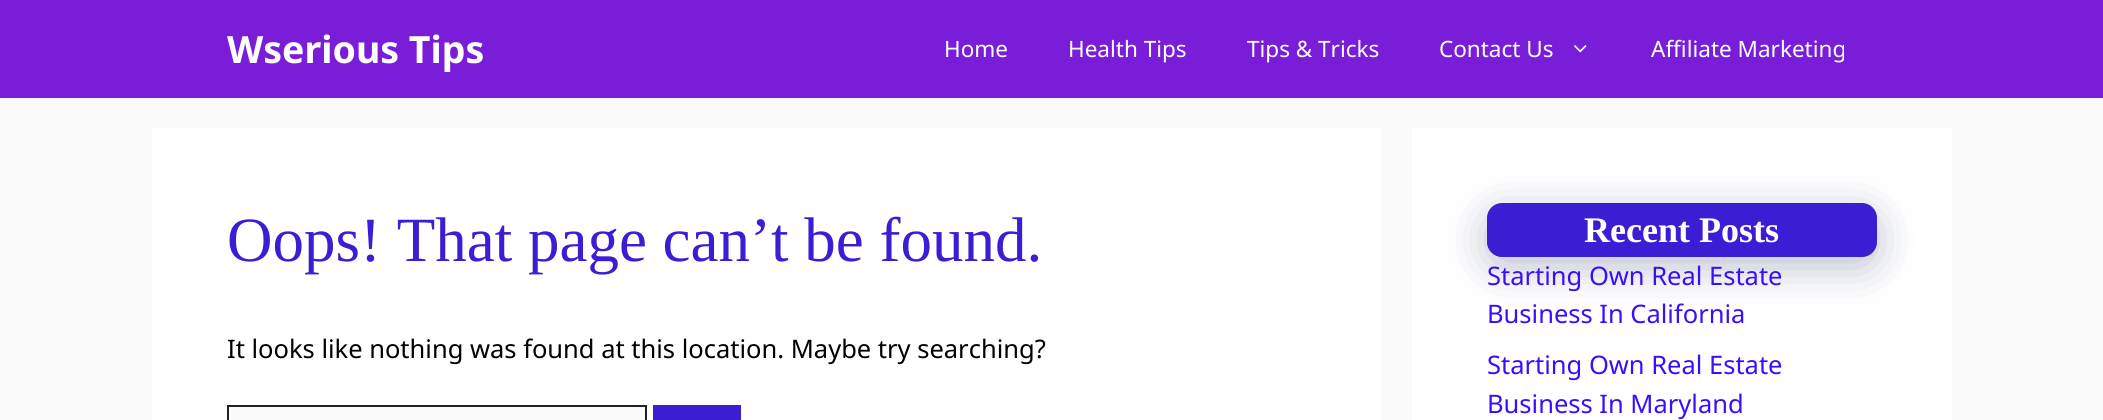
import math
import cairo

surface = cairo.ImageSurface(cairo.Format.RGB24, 2103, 420)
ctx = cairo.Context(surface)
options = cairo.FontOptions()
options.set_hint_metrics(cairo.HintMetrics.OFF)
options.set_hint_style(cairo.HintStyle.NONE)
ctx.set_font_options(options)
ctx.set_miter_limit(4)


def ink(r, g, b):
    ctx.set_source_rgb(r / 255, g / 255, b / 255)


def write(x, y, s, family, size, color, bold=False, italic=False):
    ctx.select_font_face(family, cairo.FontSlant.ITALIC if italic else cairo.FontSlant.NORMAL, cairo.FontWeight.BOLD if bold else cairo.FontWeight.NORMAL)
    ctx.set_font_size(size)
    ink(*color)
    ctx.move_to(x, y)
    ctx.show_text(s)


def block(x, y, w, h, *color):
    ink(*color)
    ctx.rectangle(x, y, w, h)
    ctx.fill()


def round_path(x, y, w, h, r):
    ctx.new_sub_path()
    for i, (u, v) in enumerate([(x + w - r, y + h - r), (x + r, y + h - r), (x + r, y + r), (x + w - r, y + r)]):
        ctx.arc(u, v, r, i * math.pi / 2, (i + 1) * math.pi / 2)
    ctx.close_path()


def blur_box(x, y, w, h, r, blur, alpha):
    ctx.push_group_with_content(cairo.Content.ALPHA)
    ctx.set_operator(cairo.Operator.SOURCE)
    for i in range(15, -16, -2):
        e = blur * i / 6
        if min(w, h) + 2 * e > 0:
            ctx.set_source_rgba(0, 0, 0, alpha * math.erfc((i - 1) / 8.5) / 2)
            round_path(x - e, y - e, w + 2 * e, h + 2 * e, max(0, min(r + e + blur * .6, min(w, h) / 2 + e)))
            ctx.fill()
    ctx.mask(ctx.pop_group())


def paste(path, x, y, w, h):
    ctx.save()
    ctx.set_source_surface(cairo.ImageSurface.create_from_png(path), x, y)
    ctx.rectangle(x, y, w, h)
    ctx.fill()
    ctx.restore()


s1 = dict(family="Noto Sans", size=37.5, color=(255, 255, 255), bold=True)
s2 = dict(family="Noto Sans", size=22.5, color=(255, 255, 255))
s3 = dict(family="Liberation Serif", size=63, color=(59, 29, 212))
s4 = dict(family="Noto Sans", size=25.5, color=(0, 0, 0))
s5 = dict(family="Liberation Serif", size=36, color=(255, 255, 255), bold=True)
s6 = dict(family="Noto Sans", size=25.5, color=(55, 15, 255))

ink(250, 250, 250)
ctx.paint()
block(0, 0, 2103, 98, 122, 29, 216)
write(227, 63, "Wserious Tips", **s1)
write(944, 57, "Home", **s2)
write(1068, 57, "Health Tips", **s2)
write(1247, 57, "Tips & Tricks", **s2)
write(1439, 57, "Contact Us", **s2)
paste("pic1.png", 1574, 45, 13, 8)
write(1651, 57, "Affiliate Marketing", **s2)
block(152, 128, 1230, 292, 255, 255, 255)
write(227, 261, "Oops! That page can’t be found.", **s3)
write(227, 358, "It looks like nothing was found at this location. Maybe try searching?", **s4)
ink(250, 250, 250)
ctx.rectangle(228, 406, 418, 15)
ctx.fill_preserve()
ink(33, 33, 33)
ctx.stroke()
block(653, 405, 88, 15, 59, 29, 212)
block(1412, 128, 540, 292, 255, 255, 255)
ink(23, 43, 99)
blur_box(1487, 213, 390, 54, 15, 21, 0.3)
ink(59, 29, 212)
round_path(1487, 203, 390, 54, 15)
ctx.fill()
write(1584, 242, "Recent Posts", **s5)
write(1487, 285, "Starting Own Real Estate", **s6)
write(1487, 323, "Business In California", **s6)
write(1487, 374, "Starting Own Real Estate", **s6)
write(1487, 413, "Business In Maryland", **s6)
surface.write_to_png("screenshot.png")
